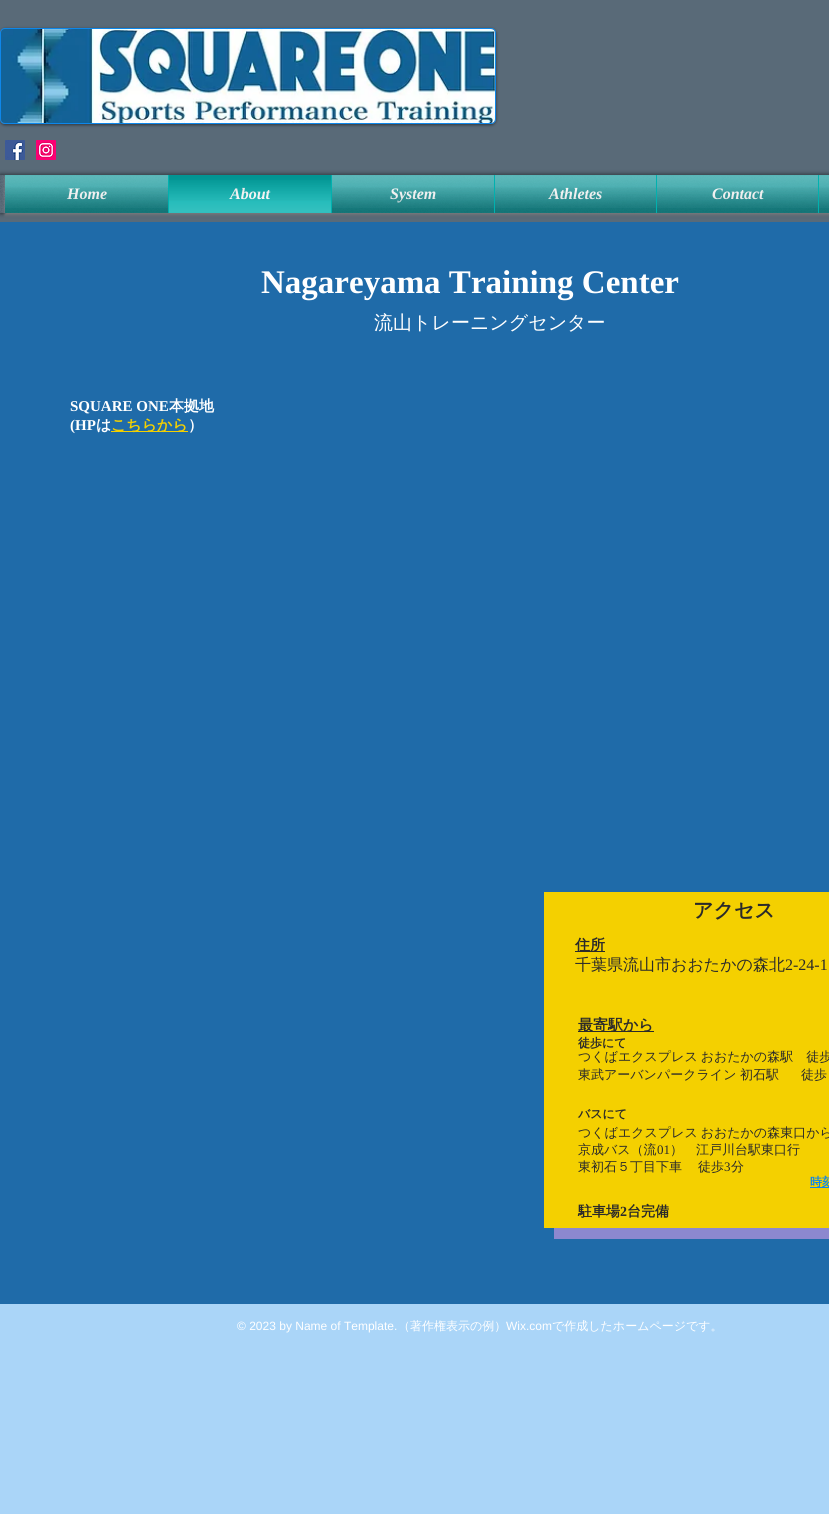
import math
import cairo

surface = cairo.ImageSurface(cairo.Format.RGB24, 829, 1514)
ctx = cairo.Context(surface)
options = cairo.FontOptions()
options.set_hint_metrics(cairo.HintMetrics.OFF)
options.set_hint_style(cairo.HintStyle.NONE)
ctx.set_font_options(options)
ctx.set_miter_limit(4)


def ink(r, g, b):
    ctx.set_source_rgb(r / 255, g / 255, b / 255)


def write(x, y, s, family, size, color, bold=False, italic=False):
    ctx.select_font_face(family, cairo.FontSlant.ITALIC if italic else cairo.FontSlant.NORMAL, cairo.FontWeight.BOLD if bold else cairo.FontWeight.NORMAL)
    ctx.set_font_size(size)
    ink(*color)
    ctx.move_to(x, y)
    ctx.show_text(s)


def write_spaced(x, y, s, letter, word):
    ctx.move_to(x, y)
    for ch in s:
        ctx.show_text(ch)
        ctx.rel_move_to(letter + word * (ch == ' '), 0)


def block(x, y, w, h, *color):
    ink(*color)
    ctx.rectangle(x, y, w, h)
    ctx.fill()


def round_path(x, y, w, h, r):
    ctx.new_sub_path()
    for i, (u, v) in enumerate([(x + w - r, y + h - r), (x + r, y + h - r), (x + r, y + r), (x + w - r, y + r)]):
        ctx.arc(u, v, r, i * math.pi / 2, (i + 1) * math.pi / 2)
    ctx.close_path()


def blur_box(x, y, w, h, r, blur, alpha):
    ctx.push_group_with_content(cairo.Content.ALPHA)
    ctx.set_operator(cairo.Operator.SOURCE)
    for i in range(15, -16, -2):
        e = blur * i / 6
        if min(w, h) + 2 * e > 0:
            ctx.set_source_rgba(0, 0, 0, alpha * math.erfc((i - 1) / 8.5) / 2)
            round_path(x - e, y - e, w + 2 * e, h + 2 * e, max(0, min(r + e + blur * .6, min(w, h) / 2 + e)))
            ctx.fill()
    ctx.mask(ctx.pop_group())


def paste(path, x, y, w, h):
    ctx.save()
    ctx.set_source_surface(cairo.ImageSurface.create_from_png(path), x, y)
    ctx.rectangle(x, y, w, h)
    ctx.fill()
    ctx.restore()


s1 = dict(family="Liberation Serif", size=16, color=(255, 255, 255), bold=True, italic=True)
s2 = dict(family="Liberation Serif", size=33, color=(255, 255, 255), bold=True)
s3 = dict(family="WenQuanYi Zen Hei Medium", size=19, color=(255, 255, 255))
s4 = dict(family="Liberation Serif", size=15, color=(255, 255, 255), bold=True)
s5 = dict(family="WenQuanYi Zen Hei", size=15, color=(255, 255, 255), bold=True)
s6 = dict(family="WenQuanYi Zen Hei", size=15, color=(244, 208, 0), bold=True)
s7 = dict(family="WenQuanYi Zen Hei", size=20, color=(42, 42, 42), bold=True)
s8 = dict(family="WenQuanYi Zen Hei", size=15, color=(42, 42, 42), bold=True)
s9 = dict(family="WenQuanYi Zen Hei Medium", size=16, color=(42, 42, 42))
s10 = dict(family="Liberation Serif", size=16, color=(42, 42, 42))
s11 = dict(family="WenQuanYi Zen Hei", size=12, color=(42, 42, 42), bold=True)
s12 = dict(family="WenQuanYi Zen Hei Medium", size=13, color=(42, 42, 42))
s13 = dict(family="Liberation Serif", size=13, color=(42, 42, 42))
s14 = dict(family="WenQuanYi Zen Hei", size=12, color=(14, 135, 234), bold=True)
s15 = dict(family="WenQuanYi Zen Hei", size=14, color=(42, 42, 42), bold=True)
s16 = dict(family="Liberation Serif", size=14, color=(42, 42, 42), bold=True)
s17 = dict(family="Liberation Sans", size=12, color=(255, 255, 255))
s18 = dict(family="WenQuanYi Zen Hei Medium", size=12, color=(255, 255, 255))

ink(170, 213, 248)
ctx.paint()
block(0, 0, 829, 222, 89, 106, 120)
block(5, 175, 824, 38, 52, 136, 143)
ctx.save()
ctx.set_fill_rule(cairo.FillRule.EVEN_ODD)
ctx.new_path()
ctx.move_to(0, 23)
ctx.line_to(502, 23)
ctx.line_to(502, 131)
ctx.line_to(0, 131)
ctx.close_path()
ctx.move_to(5, 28)
ctx.line_to(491, 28)
ctx.curve_to(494, 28, 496, 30, 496, 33)
ctx.line_to(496, 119)
ctx.curve_to(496, 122, 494, 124, 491, 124)
ctx.line_to(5, 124)
ctx.curve_to(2, 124, 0, 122, 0, 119)
ctx.line_to(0, 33)
ctx.curve_to(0, 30, 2, 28, 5, 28)
ctx.close_path()
ctx.clip()
ink(0, 0, 0)
blur_box(0, 29, 496, 96, 5, 1.5, 0.5)
ctx.restore()
round_path(0.5, 28.5, 495, 95, 4.5)
ink(14, 135, 234)
ctx.set_line_width(1)
ctx.stroke()
paste("pic1.png", 1, 29, 494, 94)
paste("pic2.png", 5, 140, 20, 20)
paste("pic3.png", 36, 140, 20, 20)
ctx.save()
ctx.set_fill_rule(cairo.FillRule.EVEN_ODD)
ctx.new_path()
ctx.move_to(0, 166)
ctx.line_to(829, 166)
ctx.line_to(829, 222)
ctx.line_to(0, 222)
ctx.close_path()
ctx.move_to(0, 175)
ctx.line_to(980, 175)
ctx.line_to(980, 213)
ctx.line_to(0, 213)
ctx.close_path()
ctx.clip()
ink(0, 0, 0)
blur_box(0, 175, 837, 38, 0, 2.5, 0.7)
ctx.restore()
paste("pic4.png", 0, 175, 829, 38)
ctx.save()
ctx.set_fill_rule(cairo.FillRule.EVEN_ODD)
ctx.new_path()
ctx.move_to(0, 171)
ctx.line_to(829, 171)
ctx.line_to(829, 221)
ctx.line_to(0, 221)
ctx.close_path()
ctx.move_to(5, 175)
ctx.line_to(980, 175)
ctx.line_to(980, 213)
ctx.line_to(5, 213)
ctx.close_path()
ctx.clip()
ink(162, 158, 158)
blur_box(5, 177, 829, 38, 0, 1.5, 0.6)
ctx.restore()
paste("pic5.png", 5, 175, 824, 33)
paste("pic6.png", 5, 188, 824, 25)
ctx.set_source_rgba(0.004, 0.694, 0.686, 0.42)
ctx.rectangle(5, 175, 163, 38)
ctx.fill()
write(67, 199, "Home", **s1)
paste("pic7.png", 5, 175, 163, 33)
paste("pic8.png", 5, 187, 163, 26)
block(168, 175, 164, 38, 1, 177, 175)
write(230, 199, "About", **s1)
paste("pic9.png", 169, 175, 162, 26)
paste("pic10.png", 169, 180, 162, 33)
ctx.set_source_rgba(0.004, 0.694, 0.686, 0.42)
ctx.rectangle(332, 175, 162, 38)
ctx.fill()
write(390, 199, "System", **s1)
paste("pic11.png", 332, 175, 162, 33)
paste("pic12.png", 332, 187, 162, 26)
ctx.set_source_rgba(0.004, 0.694, 0.686, 0.42)
ctx.rectangle(495, 175, 161, 38)
ctx.fill()
block(494, 175, 1, 38, 1, 177, 175)
write(549, 199, "Athletes", **s1)
paste("pic13.png", 495, 175, 161, 33)
paste("pic14.png", 495, 187, 161, 26)
ctx.set_source_rgba(0.004, 0.694, 0.686, 0.42)
ctx.rectangle(657, 175, 161, 38)
ctx.fill()
block(656, 175, 1, 38, 1, 177, 175)
write(712, 199, "Contact", **s1)
paste("pic15.png", 657, 175, 161, 33)
paste("pic16.png", 657, 187, 161, 26)
ctx.set_source_rgba(0.004, 0.694, 0.686, 0.42)
ctx.rectangle(819, 175, 10, 38)
ctx.fill()
block(818, 175, 1, 38, 1, 177, 175)
paste("pic17.png", 819, 175, 10, 33)
paste("pic18.png", 819, 187, 10, 26)
block(0, 222, 829, 1082, 31, 107, 169)
write(261, 293, "Nagareyama Training Center", **s2)
write(374, 329, "流山トレーニングセンター", **s3)
write(70, 411, "SQUARE ONE", **s4)
write(169, 411, "本拠地", **s5)
write(70, 430, "(HP", **s4)
write(96, 430, "は", **s5)
block(111, 431, 77, 1, 244, 208, 0)
write(111, 430, "こちらから", **s6)
write(188, 430, "）", **s5)
ink(140, 136, 207)
ctx.new_path()
ctx.move_to(554, 1228)
ctx.line_to(554, 1239)
ctx.line_to(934, 1239)
ctx.line_to(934, 903)
ctx.line_to(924, 903)
ctx.line_to(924, 1228)
ctx.close_path()
ctx.fill()
block(544, 892, 285, 336, 244, 208, 0)
write(693, 917, "アクセス", **s7)
block(575, 951, 30, 1, 42, 42, 42)
write(575, 950, "住所", **s8)
write(575, 970, "千葉県流山市おおたかの森北", **s9)
write(785, 970, "2-24-1", **s10)
block(578, 1031, 76, 1, 42, 42, 42)
write(578, 1030, "最寄駅から", **s8)
write(578, 1047, "徒歩にて", **s11)
ctx.select_font_face("WenQuanYi Zen Hei Medium")
ctx.set_font_size(13)
write_spaced(578, 1061, "つくばエクスプレス おおたかの森駅　徒歩", 0, -1)
write(578, 1079, "東武アーバンパークライン", **s12)
write(740, 1079, "初石駅", **s12)
write(801, 1079, "徒歩", **s12)
write(578, 1118, "バスにて", **s11)
ctx.select_font_face("WenQuanYi Zen Hei Medium")
ctx.set_font_size(13)
write_spaced(578, 1137, "つくばエクスプレス おおたかの森東口から", 0, -1)
write(578, 1154, "京成バス（流", **s12)
write(657, 1154, "01", **s13)
write(670, 1154, "）　江戸川台駅東口行", **s12)
write_spaced(578, 1171, "東初石５丁目下車　 徒歩", 0, -1)
write(724, 1171, "3", **s13)
write(731, 1171, "分", **s12)
block(810, 1187, 19, 1, 14, 135, 234)
write(810, 1186, "時刻", **s14)
write(578, 1216, "駐車場", **s15)
write(620, 1216, "2", **s16)
write(627, 1216, "台完備", **s15)
write(237, 1330, "© 2023 by Name of Template.", **s17)
write(398, 1330, "（著作権表示の例）", **s18)
write(506, 1330, "Wix.com", **s17)
write(552, 1330, "で作成したホームページです。", **s18)
surface.write_to_png("screenshot.png")
